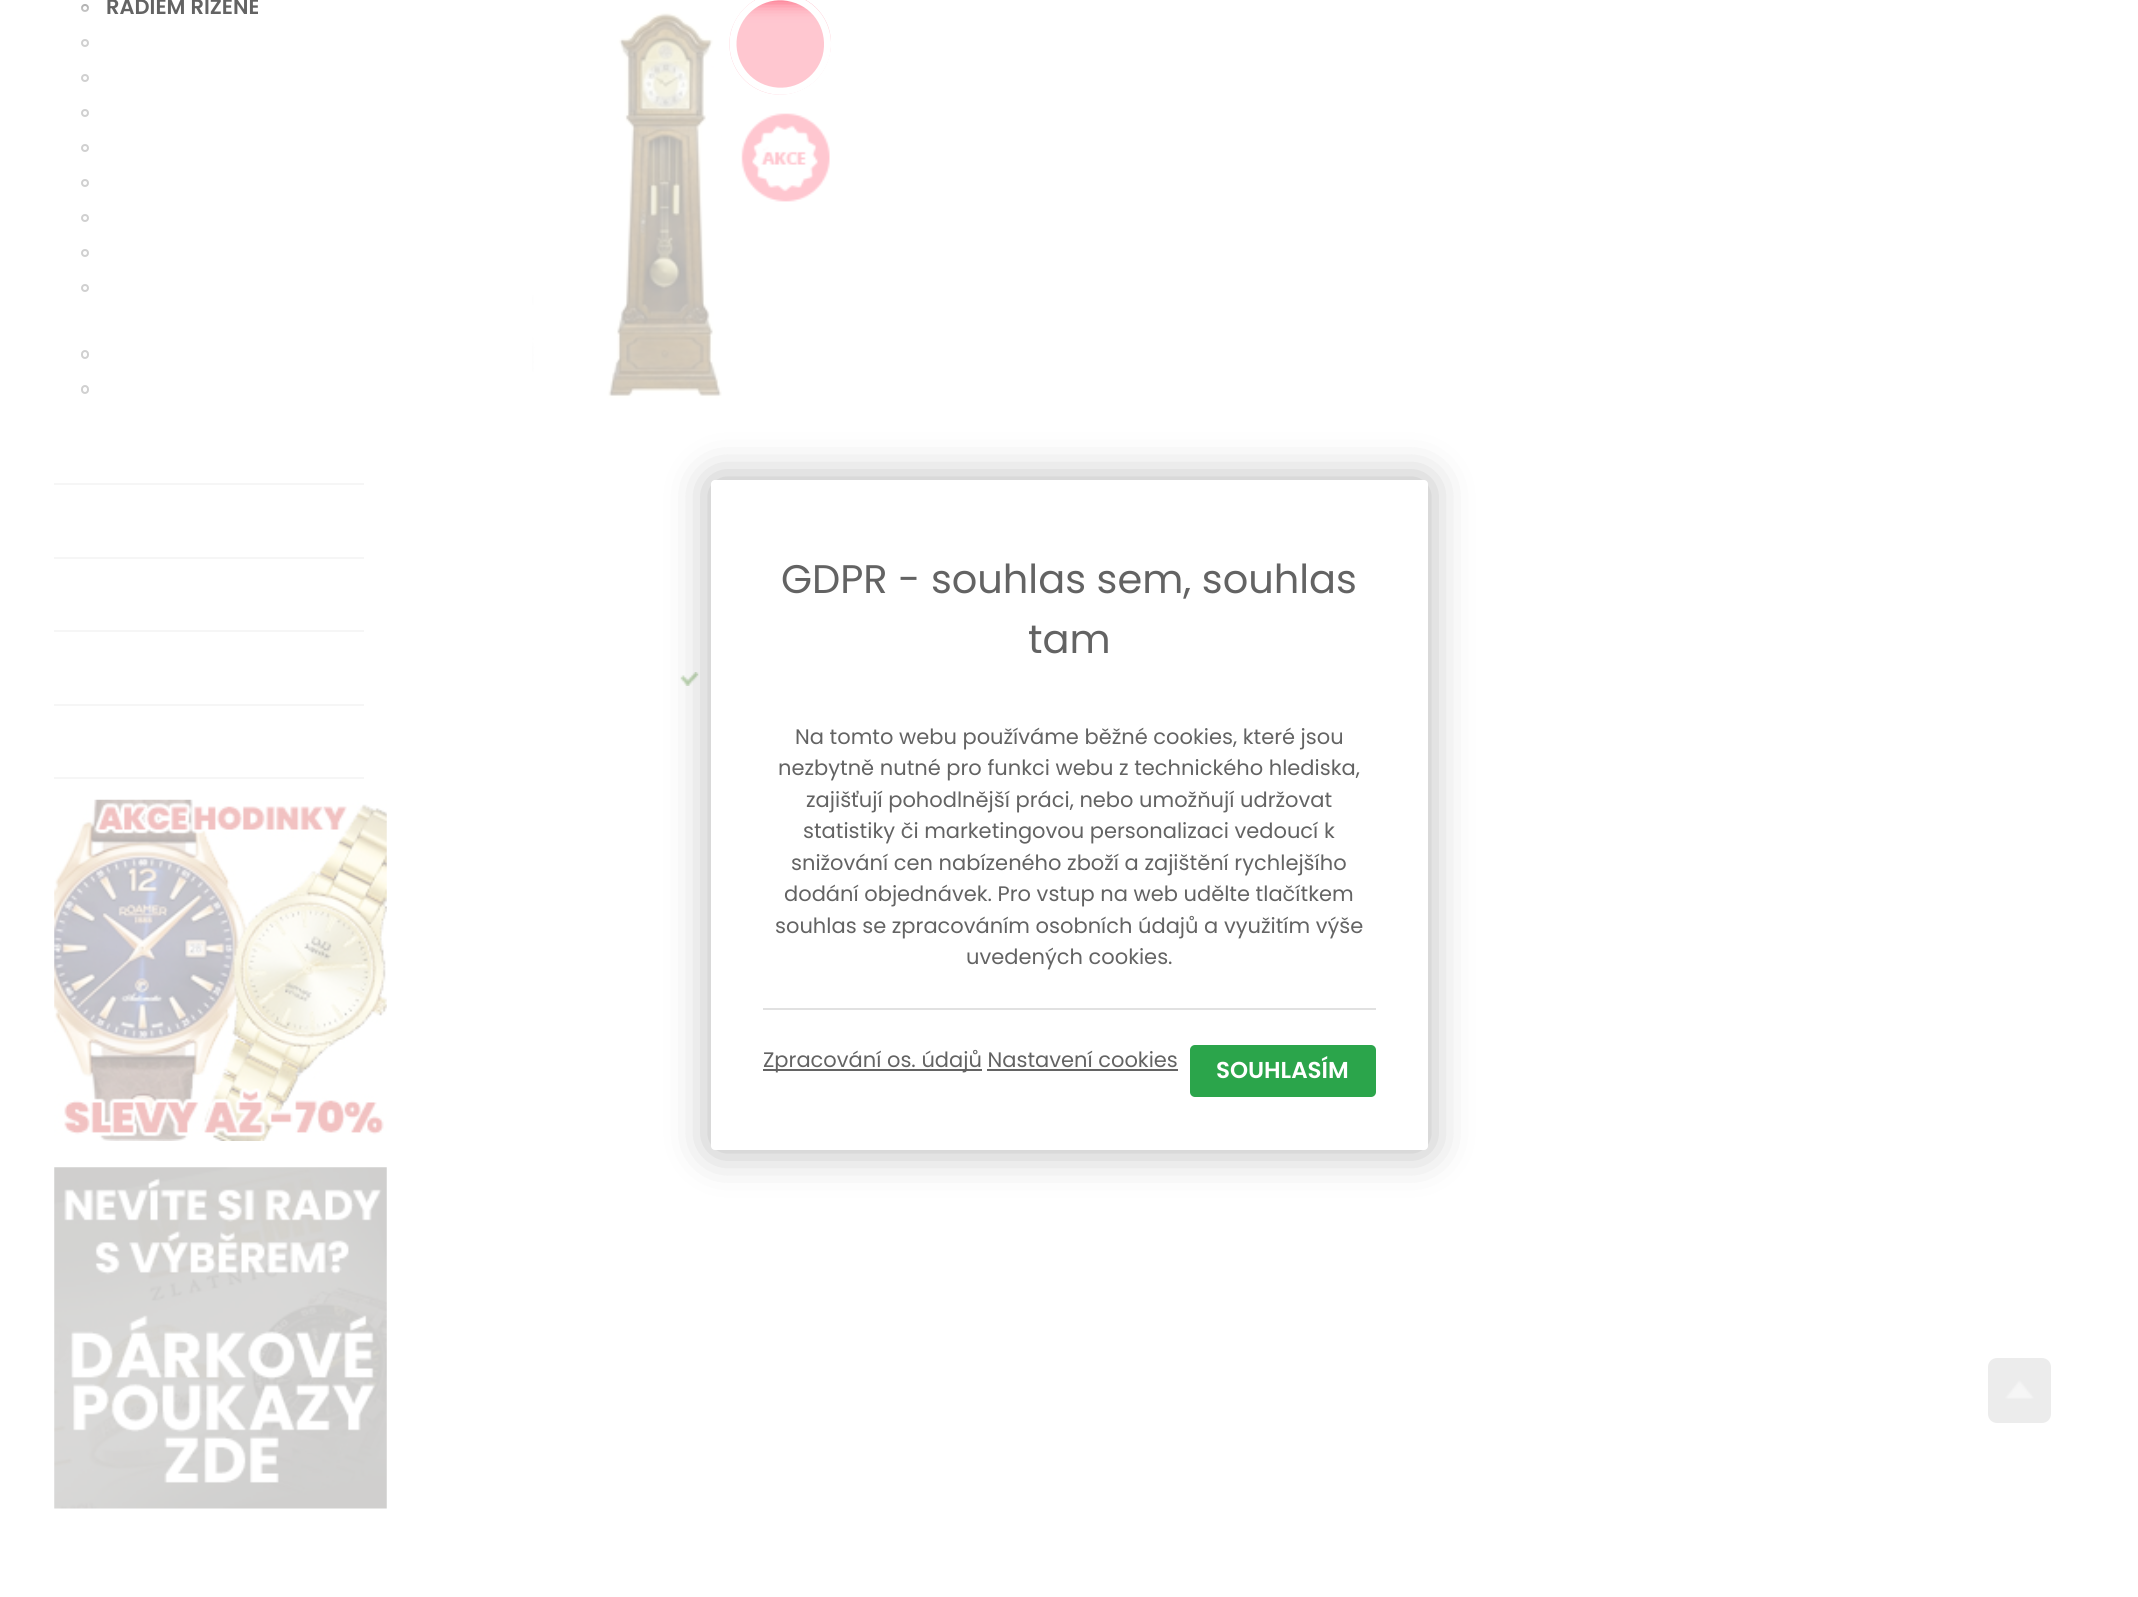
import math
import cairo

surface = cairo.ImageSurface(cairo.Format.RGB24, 2138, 1597)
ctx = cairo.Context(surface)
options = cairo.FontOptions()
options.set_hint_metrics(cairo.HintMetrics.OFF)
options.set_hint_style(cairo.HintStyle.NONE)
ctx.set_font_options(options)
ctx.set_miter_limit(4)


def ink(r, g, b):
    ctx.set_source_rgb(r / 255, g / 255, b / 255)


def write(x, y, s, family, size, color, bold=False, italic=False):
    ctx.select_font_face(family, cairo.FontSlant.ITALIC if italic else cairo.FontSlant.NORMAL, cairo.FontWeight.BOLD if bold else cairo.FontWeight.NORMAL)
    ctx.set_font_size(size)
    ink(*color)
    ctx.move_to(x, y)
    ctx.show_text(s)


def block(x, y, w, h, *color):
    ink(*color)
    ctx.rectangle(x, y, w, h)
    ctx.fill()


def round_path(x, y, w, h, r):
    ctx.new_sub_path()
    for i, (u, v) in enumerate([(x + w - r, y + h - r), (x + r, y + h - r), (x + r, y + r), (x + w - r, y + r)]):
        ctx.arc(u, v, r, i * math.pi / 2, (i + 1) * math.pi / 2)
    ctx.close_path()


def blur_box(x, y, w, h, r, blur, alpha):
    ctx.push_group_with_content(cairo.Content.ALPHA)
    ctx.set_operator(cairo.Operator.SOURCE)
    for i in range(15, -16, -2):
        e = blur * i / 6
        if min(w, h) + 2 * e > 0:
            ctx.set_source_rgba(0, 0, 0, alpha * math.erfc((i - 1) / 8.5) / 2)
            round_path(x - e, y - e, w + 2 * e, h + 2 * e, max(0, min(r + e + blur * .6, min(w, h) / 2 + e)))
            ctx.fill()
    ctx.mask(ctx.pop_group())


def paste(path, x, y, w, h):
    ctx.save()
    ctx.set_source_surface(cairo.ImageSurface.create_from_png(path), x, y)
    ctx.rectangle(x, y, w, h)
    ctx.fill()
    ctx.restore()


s1 = dict(family="Poppins SemiBold", size=21, color=(99, 99, 99))
s2 = dict(family="Poppins", size=39.9, color=(99, 99, 99))
s3 = dict(family="Poppins", size=21, color=(99, 99, 99))
s4 = dict(family="Poppins SemiBold", size=23, color=(255, 255, 255))

ink(255, 255, 255)
ctx.paint()
ctx.arc(85, 8, 3, 0, 2 * math.pi)
ink(99, 99, 99)
ctx.stroke()
ctx.arc(85, 43, 3, 0, 2 * math.pi)
ctx.stroke()
ctx.arc(85, 78, 3, 0, 2 * math.pi)
ctx.stroke()
ctx.arc(85, 113, 3, 0, 2 * math.pi)
ctx.stroke()
ctx.arc(85, 148, 3, 0, 2 * math.pi)
ctx.stroke()
ctx.arc(85, 183, 3, 0, 2 * math.pi)
ctx.stroke()
ctx.arc(85, 218, 3, 0, 2 * math.pi)
ctx.stroke()
ctx.arc(85, 253, 3, 0, 2 * math.pi)
ctx.stroke()
ctx.arc(85, 288, 3, 0, 2 * math.pi)
ctx.stroke()
round_path(82, 351, 6, 7, 3)
ctx.stroke()
round_path(82, 386, 6, 7, 3)
ctx.stroke()
block(54, 483, 310, 2, 225, 225, 225)
block(54, 557, 310, 2, 225, 225, 225)
block(54, 630, 310, 2, 225, 225, 225)
block(54, 704, 310, 2, 225, 225, 225)
block(54, 777, 310, 2, 225, 225, 225)
paste("pic1.png", 54, 799, 333, 342)
paste("pic2.png", 54, 1167, 333, 342)
paste("pic3.png", 532, 11, 190, 388)
ink(254, 69, 100)
ctx.new_path()
ctx.move_to(793, -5)
ctx.curve_to(821, 2, 837, 30, 829, 57)
ctx.curve_to(822, 84, 794, 100, 767, 93)
ctx.curve_to(740, 86, 724, 58, 731, 31)
ctx.curve_to(739, 4, 766, -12, 793, -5)
ctx.close_path()
ctx.fill()
ctx.new_path()
ctx.move_to(792.5, -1.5)
ctx.curve_to(818, 5, 832.5, 31, 826, 56.5)
ctx.curve_to(819, 81.5, 793.5, 96.5, 768, 89.5)
ctx.curve_to(743, 83, 728, 57, 734.5, 32)
ctx.curve_to(741.5, 6.5, 767.5, -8.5, 792.5, -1.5)
ctx.close_path()
ink(255, 255, 255)
ctx.set_line_width(7)
ctx.stroke()
paste("pic4.png", 741, 113, 89, 89)
paste("pic5.png", 680, 672, 19, 14)
ink(192, 192, 192)
round_path(1988, 1358, 63, 65, 9)
ctx.fill()
paste("pic6.png", 2005, 1380, 29, 19)
ink(255, 255, 255)
blur_box(0, 0, 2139, 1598, 0, 9, 0.7)
write(106, 14, "RÁDIEM ŘÍZENÉ", **s1)
ink(0, 0, 0)
blur_box(711, 480, 717, 670, 4, 22, 0.3)
ink(255, 255, 255)
round_path(711, 480, 717, 670, 4)
ctx.fill()
write(781, 593, "GDPR - souhlas sem, souhlas", **s2)
write(1028, 653, "tam", **s2)
write(795, 744, "Na tomto webu používáme běžné cookies, které jsou", **s3)
write(778, 775, "nezbytně nutné pro funkci webu z technického hlediska,", **s3)
write(806, 807, "zajišťují pohodlnější práci, nebo umožňují udržovat", **s3)
write(803, 838, "statistiky či marketingovou personalizaci vedoucí k", **s3)
write(791, 870, "snižování cen nabízeného zboží a zajištění rychlejšího", **s3)
write(784, 901, "dodání objednávek. Pro vstup na web udělte tlačítkem", **s3)
write(775, 933, "souhlas se zpracováním osobních údajů a využitím výše", **s3)
write(966, 964, "uvedených cookies.", **s3)
block(763, 1008, 613, 2, 225, 225, 225)
block(763, 1069, 219, 2, 99, 99, 99)
write(763, 1067, "Zpracování os. údajů Nastavení cookies", **s3)
block(987, 1069, 191, 2, 99, 99, 99)
ink(43, 165, 75)
round_path(1190, 1045, 186, 52, 5)
ctx.fill()
write(1216, 1078, "SOUHLASÍM", **s4)
surface.write_to_png("screenshot.png")
